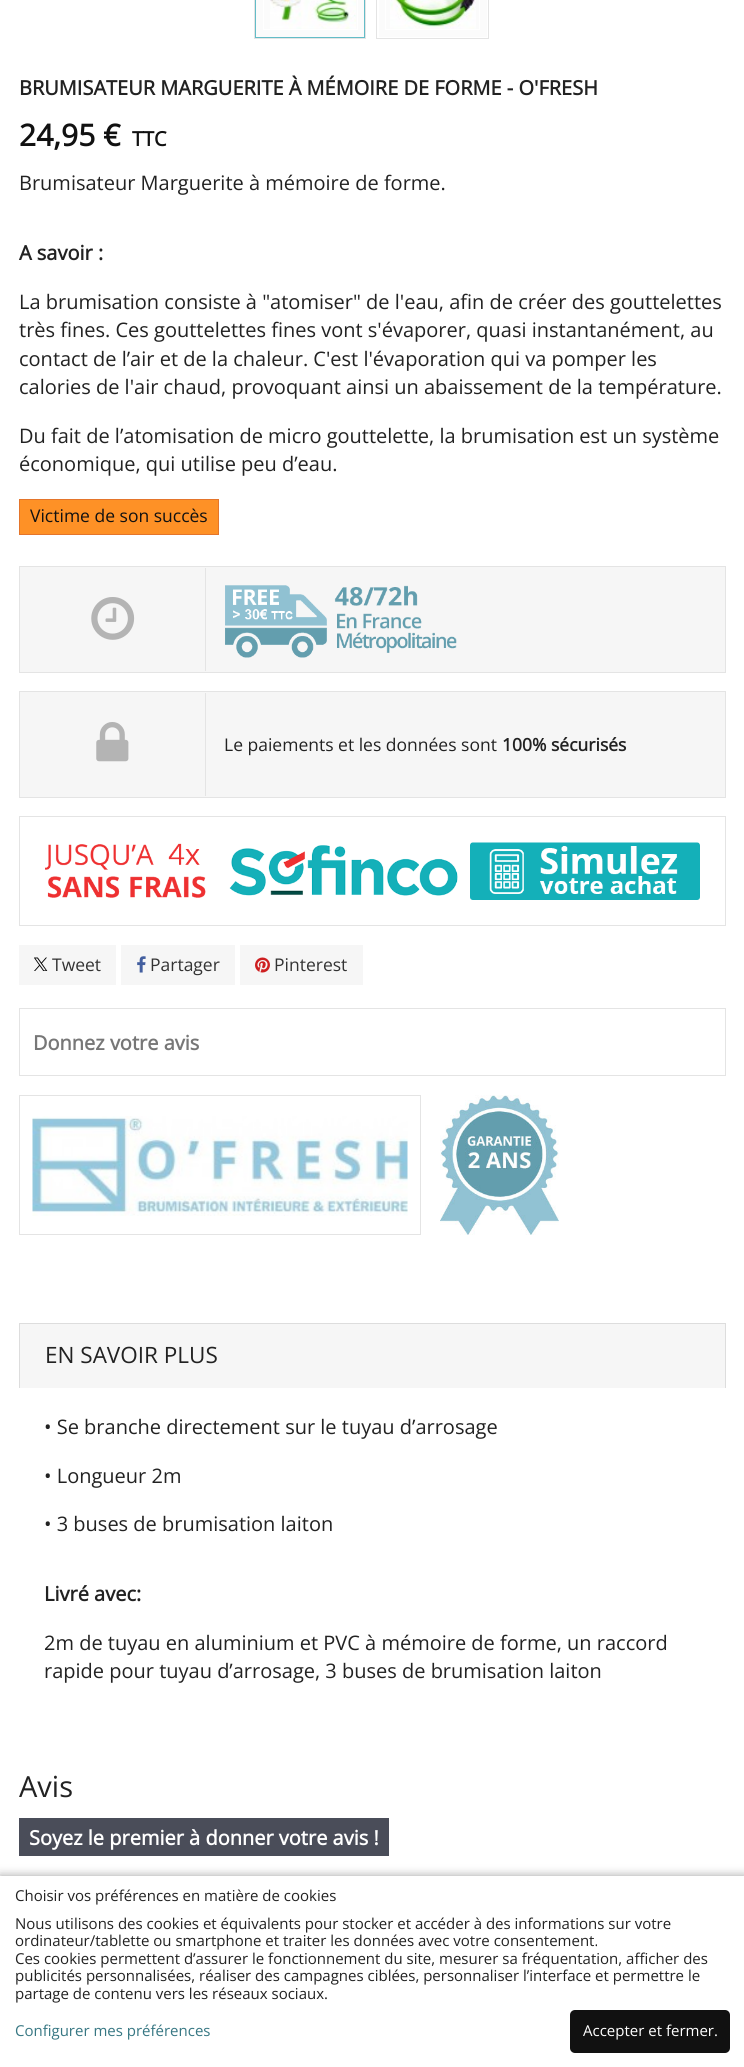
import math
import cairo

surface = cairo.ImageSurface(cairo.Format.RGB24, 744, 2067)
ctx = cairo.Context(surface)
options = cairo.FontOptions()
options.set_hint_metrics(cairo.HintMetrics.OFF)
options.set_hint_style(cairo.HintStyle.NONE)
ctx.set_font_options(options)
ctx.set_miter_limit(4)


def ink(r, g, b):
    ctx.set_source_rgb(r / 255, g / 255, b / 255)


def write(x, y, s, family, size, color, bold=False, italic=False):
    ctx.select_font_face(family, cairo.FontSlant.ITALIC if italic else cairo.FontSlant.NORMAL, cairo.FontWeight.BOLD if bold else cairo.FontWeight.NORMAL)
    ctx.set_font_size(size)
    ink(*color)
    ctx.move_to(x, y)
    ctx.show_text(s)


def block(x, y, w, h, *color):
    ink(*color)
    ctx.rectangle(x, y, w, h)
    ctx.fill()


def round_path(x, y, w, h, r):
    ctx.new_sub_path()
    for i, (u, v) in enumerate([(x + w - r, y + h - r), (x + r, y + h - r), (x + r, y + r), (x + w - r, y + r)]):
        ctx.arc(u, v, r, i * math.pi / 2, (i + 1) * math.pi / 2)
    ctx.close_path()


def blur_box(x, y, w, h, r, blur, alpha):
    ctx.push_group_with_content(cairo.Content.ALPHA)
    ctx.set_operator(cairo.Operator.SOURCE)
    for i in range(15, -16, -2):
        e = blur * i / 6
        if min(w, h) + 2 * e > 0:
            ctx.set_source_rgba(0, 0, 0, alpha * math.erfc((i - 1) / 8.5) / 2)
            round_path(x - e, y - e, w + 2 * e, h + 2 * e, max(0, min(r + e + blur * .6, min(w, h) / 2 + e)))
            ctx.fill()
    ctx.mask(ctx.pop_group())


def paste(path, x, y, w, h):
    ctx.save()
    ctx.set_source_surface(cairo.ImageSurface.create_from_png(path), x, y)
    ctx.rectangle(x, y, w, h)
    ctx.fill()
    ctx.restore()


s1 = dict(family="Open Sans", size=20, color=(34, 34, 34), bold=True)
s2 = dict(family="Open Sans", size=30, color=(17, 17, 17), bold=True)
s3 = dict(family="Open Sans", size=20, color=(17, 17, 17), bold=True)
s4 = dict(family="Open Sans", size=20, color=(34, 34, 34))
s5 = dict(family="Open Sans", size=17.5, color=(17, 17, 17))
s6 = dict(family="Open Sans", size=17.5, color=(34, 34, 34))
s7 = dict(family="Open Sans", size=17.5, color=(34, 34, 34), bold=True)
s8 = dict(family="Open Sans", size=17.5, color=(51, 51, 51))
s9 = dict(family="Open Sans", size=20, color=(119, 119, 119), bold=True)
s10 = dict(family="Open Sans", size=22.5, color=(34, 34, 34))
s11 = dict(family="Open Sans", size=29, color=(34, 34, 34))
s12 = dict(family="Open Sans", size=20, color=(255, 255, 255), bold=True)
s13 = dict(family="Open Sans", size=15, color=(34, 34, 34))
s14 = dict(family="Open Sans", size=15, color=(55, 119, 131))
s15 = dict(family="Open Sans", size=15, color=(255, 255, 255))

ink(255, 255, 255)
ctx.paint()
ctx.rectangle(254.5, -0.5, 111, 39)
ink(228, 228, 228)
ctx.set_line_width(1)
ctx.stroke()
ink(251, 251, 251)
ctx.rectangle(255.5, -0.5, 109, 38)
ctx.fill_preserve()
ink(99, 188, 199)
ctx.stroke()
ctx.rectangle(263.5, -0.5, 94, 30)
ink(255, 255, 255)
ctx.stroke()
paste("pic1.png", 270, 0, 86, 29)
ctx.rectangle(376.5, -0.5, 112, 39)
ink(228, 228, 228)
ctx.stroke()
block(379, 0, 108, 37, 251, 251, 251)
ctx.rectangle(385.5, -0.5, 94, 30)
ink(255, 255, 255)
ctx.stroke()
paste("pic2.png", 390, 0, 86, 29)
write(19, 95, "BRUMISATEUR MARGUERITE À MÉMOIRE DE FORME - O'FRESH", **s1)
write(19, 146, "24,95 €", **s2)
write(132, 146, "TTC", **s3)
write(19, 190, "Brumisateur Marguerite à mémoire de forme.", **s4)
write(19, 260, "A savoir :", **s1)
write(19, 309, "La brumisation consiste à \"atomiser\" de l'eau, afin de créer des gouttelettes", **s4)
write(19, 337, "très fines. Ces gouttelettes fines vont s'évaporer, quasi instantanément, au", **s4)
write(19, 366, "contact de l’air et de la chaleur. C'est l'évaporation qui va pomper les", **s4)
write(19, 394, "calories de l'air chaud, provoquant ainsi un abaissement de la température.", **s4)
write(19, 443, "Du fait de l’atomisation de micro gouttelette, la brumisation est un système", **s4)
write(19, 471, "économique, qui utilise peu d’eau.", **s4)
ink(254, 145, 38)
ctx.rectangle(19.5, 499.5, 199, 35)
ctx.fill_preserve()
ink(228, 117, 43)
ctx.stroke()
write(30, 522, "Victime de son succès", **s5)
ink(246, 246, 246)
ctx.rectangle(19.5, 566.5, 706, 106)
ctx.fill_preserve()
ink(228, 228, 228)
ctx.stroke()
block(205, 568, 1, 103, 228, 228, 228)
paste("pic3.png", 91, 597, 44, 43)
paste("pic4.png", 225, 585, 232, 73)
ink(246, 246, 246)
ctx.rectangle(19.5, 691.5, 706, 106)
ctx.fill_preserve()
ink(228, 228, 228)
ctx.stroke()
block(205, 693, 1, 103, 228, 228, 228)
paste("pic5.png", 96, 722, 33, 40)
write(224, 751, "Le paiements et les données sont", **s6)
write(502, 751, "100% sécurisés", **s7)
ctx.rectangle(19.5, 816.5, 706, 109)
ink(228, 228, 228)
ctx.stroke()
paste("pic6.png", 45, 842, 655, 58)
block(19, 945, 97, 40, 246, 246, 246)
paste("pic7.png", 34, 957, 14, 14)
write(52, 971, "Tweet", **s8)
block(121, 945, 114, 40, 246, 246, 246)
paste("pic8.png", 137, 956, 9, 17)
write(150, 971, "Partager", **s8)
block(240, 945, 123, 40, 246, 246, 246)
paste("pic9.png", 255, 957, 15, 16)
write(274, 971, "Pinterest", **s8)
ctx.rectangle(19.5, 1008.5, 706, 67)
ink(228, 228, 228)
ctx.stroke()
write(33, 1050, "Donnez votre avis", **s9)
ctx.rectangle(19.5, 1095.5, 401, 139)
ink(228, 228, 228)
ctx.stroke()
paste("pic10.png", 32, 1116, 376, 100)
paste("pic11.png", 440, 1095, 119, 140)
block(20, 1324, 705, 64, 246, 246, 246)
block(19, 1323, 707, 1, 221, 221, 221)
block(725, 1323, 1, 65, 221, 221, 221)
block(19, 1323, 1, 65, 221, 221, 221)
write(45, 1363, "EN SAVOIR PLUS", **s10)
write(44, 1434, "• Se branche directement sur le tuyau d’arrosage", **s4)
write(44, 1483, "• Longueur 2m", **s4)
write(44, 1531, "• 3 buses de brumisation laiton", **s4)
write(44, 1601, "Livré avec:", **s1)
write(44, 1650, "2m de tuyau en aluminium et PVC à mémoire de forme, un raccord", **s4)
write(44, 1678, "rapide pour tuyau d’arrosage, 3 buses de brumisation laiton", **s4)
write(19, 1797, "Avis", **s11)
block(19, 1818, 370, 38, 74, 77, 89)
write(29, 1845, "Soyez le premier à donner votre avis !", **s12)
ink(160, 160, 160)
blur_box(0, 1876, 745, 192, 0, 5, 1)
block(0, 1876, 744, 191, 255, 255, 255)
write(15, 1901, "Choisir vos préférences en matière de cookies", **s13)
write(15, 1929, "Nous utilisons des cookies et équivalents pour stocker et accéder à des informations sur votre", **s13)
write(15, 1946, "ordinateur/tablette ou smartphone et traiter les données avec votre consentement.", **s13)
write(15, 1964, "Ces cookies permettent d’assurer le fonctionnement du site, mesurer sa fréquentation, afficher des", **s13)
write(15, 1981, "publicités personnalisées, réaliser des campagnes ciblées, personnaliser l’interface et permettre le", **s13)
write(15, 1999, "partage de contenu vers les réseaux sociaux.", **s13)
write(15, 2036, "Configurer mes préférences", **s14)
ink(17, 17, 17)
round_path(570, 2010, 160, 43, 5)
ctx.fill()
write(583, 2036, "Accepter et fermer.", **s15)
surface.write_to_png("screenshot.png")
